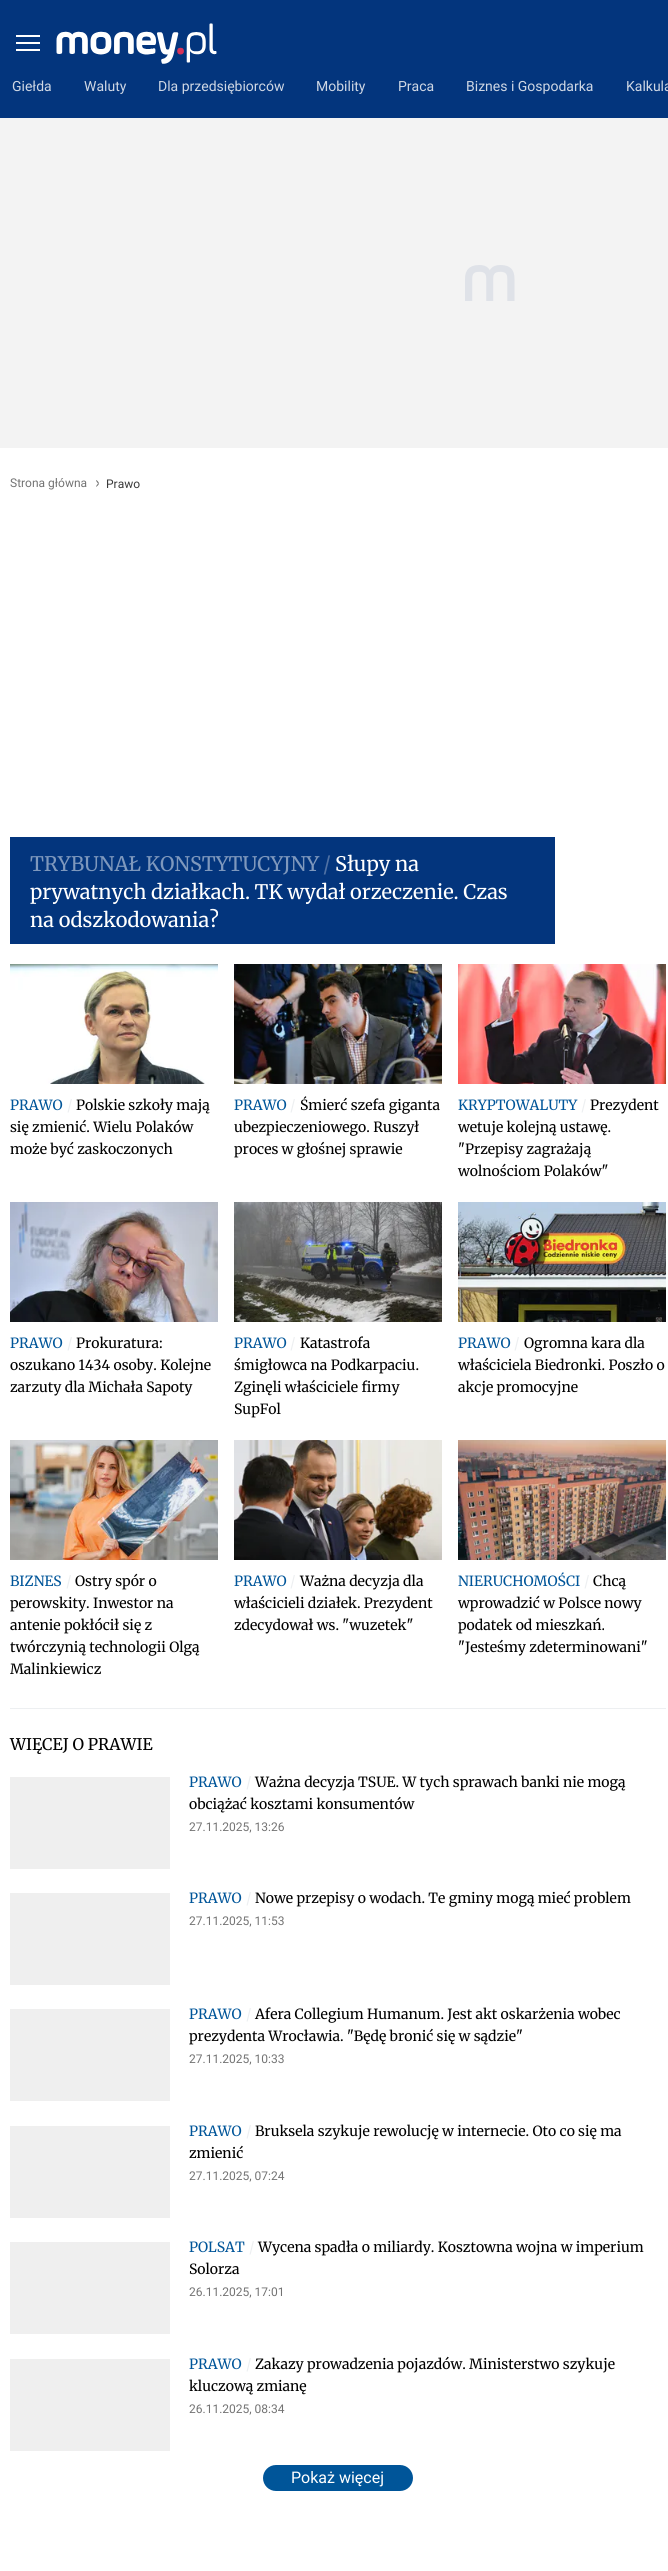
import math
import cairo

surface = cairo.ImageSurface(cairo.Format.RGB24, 668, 2571)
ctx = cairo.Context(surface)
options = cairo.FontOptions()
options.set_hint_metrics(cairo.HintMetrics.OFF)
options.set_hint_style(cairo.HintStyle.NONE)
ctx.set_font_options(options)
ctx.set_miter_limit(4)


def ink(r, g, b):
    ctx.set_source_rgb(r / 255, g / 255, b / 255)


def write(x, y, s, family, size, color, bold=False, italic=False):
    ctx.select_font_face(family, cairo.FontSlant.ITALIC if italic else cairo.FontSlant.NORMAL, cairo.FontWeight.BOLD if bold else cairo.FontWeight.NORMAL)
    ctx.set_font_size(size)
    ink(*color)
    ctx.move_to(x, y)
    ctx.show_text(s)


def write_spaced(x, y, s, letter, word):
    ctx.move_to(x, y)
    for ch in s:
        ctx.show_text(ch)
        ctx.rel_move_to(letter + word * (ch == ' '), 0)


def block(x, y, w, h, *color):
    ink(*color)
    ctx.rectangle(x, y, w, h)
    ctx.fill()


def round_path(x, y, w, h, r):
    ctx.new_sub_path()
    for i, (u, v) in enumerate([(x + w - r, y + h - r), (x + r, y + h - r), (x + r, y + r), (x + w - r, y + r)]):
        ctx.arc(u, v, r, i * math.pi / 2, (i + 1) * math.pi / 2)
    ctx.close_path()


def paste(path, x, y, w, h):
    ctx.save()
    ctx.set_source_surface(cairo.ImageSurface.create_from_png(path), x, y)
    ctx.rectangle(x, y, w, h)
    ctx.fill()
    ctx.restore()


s1 = dict(family="Roboto", size=14, color=(207, 215, 228))
s2 = dict(family="Roboto", size=12, color=(115, 115, 115))
s3 = dict(family="Roboto", size=12, color=(58, 58, 58))
s4 = dict(family="Merriweather", size=20, color=(79, 113, 164))
s5 = dict(family="Merriweather", size=20, color=(255, 255, 255))
s6 = dict(family="Merriweather", size=20, color=(126, 152, 189))
s7 = dict(family="Merriweather", size=14, color=(237, 239, 241))
s8 = dict(family="Merriweather", size=14, color=(0, 0, 0))
s9 = dict(family="Merriweather", size=14, color=(0, 85, 153))
s10 = dict(family="Merriweather", size=16, color=(0, 0, 0))
s11 = dict(family="Roboto", size=16, color=(255, 255, 255))

ink(255, 255, 255)
ctx.paint()
block(0, 0, 668, 118, 3, 53, 125)
paste("pic1.png", 16, 35, 24, 16)
paste("pic2.png", 56, 23, 161, 41)
write(12, 91, "Giełda", **s1)
write(84, 91, "Waluty", **s1)
write(158, 91, "Dla przedsiębiorców", **s1)
write(316, 91, "Mobility", **s1)
write(398, 91, "Praca", **s1)
write(466, 91, "Biznes i Gospodarka", **s1)
write(626, 91, "Kalkula", **s1)
block(0, 118, 668, 330, 243, 243, 243)
paste("pic3.png", 465, 265, 50, 36)
write(10, 487, "Strona główna", **s2)
ctx.new_path()
ctx.move_to(96.5, 481.5)
ctx.line_to(96, 480)
ctx.curve_to(97, 480, 99, 482.5, 99, 483.5)
ctx.line_to(98, 483.5)
ctx.close_path()
ctx.fill()
ctx.new_path()
ctx.move_to(99, 483.5)
ctx.curve_to(99, 484.5, 97, 486.5, 96, 487)
ctx.line_to(96.5, 485.5)
ctx.line_to(98, 483.5)
ctx.close_path()
ctx.fill()
write(106, 488, "Prawo", **s3)
block(10, 837, 545, 107, 3, 53, 125)
write(323, 871, "/", **s4)
write(335, 871, "Słupy na", **s5)
write_spaced(30, 899, "prywatnych działkach. TK wydał orzeczenie. Czas", 0, -0.25)
write(30, 927, "na odszkodowania?", **s5)
write(30, 871, "TRYBUNAŁ KONSTYTUCYJNY", **s6)
paste("pic4.png", 10, 964, 208, 120)
write(67, 1110, "/", **s7)
write(76, 1110, "Polskie szkoły mają", **s8)
write(10, 1132, "się zmienić. Wielu Polaków", **s8)
write(10, 1154, "może być zaskoczonych", **s8)
write(10, 1110, "PRAWO", **s9)
paste("pic5.png", 234, 964, 208, 120)
write(290, 1110, "/", **s7)
write(300, 1110, "Śmierć szefa giganta", **s8)
write(234, 1132, "ubezpieczeniowego. Ruszył", **s8)
write(234, 1154, "proces w głośnej sprawie", **s8)
write(234, 1110, "PRAWO", **s9)
paste("pic6.png", 458, 964, 208, 120)
write(581, 1110, "/", **s7)
write(590, 1110, "Prezydent", **s8)
write(458, 1132, "wetuje kolejną ustawę.", **s8)
write(458, 1154, "\"Przepisy zagrażają", **s8)
write(458, 1176, "wolnościom Polaków\"", **s8)
write(458, 1110, "KRYPTOWALUTY", **s9)
paste("pic7.png", 10, 1202, 208, 120)
write(67, 1348, "/", **s7)
write(76, 1348, "Prokuratura:", **s8)
write(10, 1370, "oszukano 1434 osoby. Kolejne", **s8)
write(10, 1392, "zarzuty dla Michała Sapoty", **s8)
write(10, 1348, "PRAWO", **s9)
paste("pic8.png", 234, 1202, 208, 120)
write(290, 1348, "/", **s7)
write(300, 1348, "Katastrofa", **s8)
write(234, 1370, "śmigłowca na Podkarpaciu.", **s8)
write(234, 1392, "Zginęli właściciele firmy", **s8)
write(234, 1414, "SupFol", **s8)
write(234, 1348, "PRAWO", **s9)
paste("pic9.png", 458, 1202, 208, 120)
write(514, 1348, "/", **s7)
write(524, 1348, "Ogromna kara dla", **s8)
write(458, 1370, "właściciela Biedronki. Poszło o", **s8)
write(458, 1392, "akcje promocyjne", **s8)
write(458, 1348, "PRAWO", **s9)
paste("pic10.png", 10, 1440, 208, 120)
write(66, 1586, "/", **s7)
write(75, 1586, "Ostry spór o", **s8)
write(10, 1608, "perowskity. Inwestor na", **s8)
write(10, 1630, "antenie pokłócił się z", **s8)
write(10, 1652, "twórczynią technologii Olgą", **s8)
write(10, 1674, "Malinkiewicz", **s8)
write(10, 1586, "BIZNES", **s9)
paste("pic11.png", 234, 1440, 208, 120)
write(290, 1586, "/", **s7)
write(300, 1586, "Ważna decyzja dla", **s8)
write(234, 1608, "właścicieli działek. Prezydent", **s8)
write(234, 1630, "zdecydował ws. \"wuzetek\"", **s8)
write(234, 1586, "PRAWO", **s9)
paste("pic12.png", 458, 1440, 208, 120)
write(458, 1586, "NIERUCHOMOŚCI", **s9)
write(584, 1586, "/", **s7)
write(593, 1586, "Chcą", **s8)
write(458, 1608, "wprowadzić w Polsce nowy", **s8)
ctx.save()
ctx.rectangle(458, 1440, 208, 260)
ctx.clip()
write(458, 1630, "podatek od mieszkań.", **s8)
ctx.restore()
write(458, 1652, "\"Jesteśmy zdeterminowani\"", **s8)
block(10, 1708, 656, 1, 237, 239, 241)
write(10, 1750, "WIĘCEJ O PRAWIE", **s10)
block(10, 1777, 160, 92, 239, 239, 239)
write(246, 1787, "/", **s7)
write(255, 1787, "Ważna decyzja TSUE. W tych sprawach banki nie mogą", **s8)
write(189, 1809, "obciążać kosztami konsumentów", **s8)
write(189, 1787, "PRAWO", **s9)
write(189, 1831, "27.11.2025, 13:26", **s2)
block(10, 1893, 160, 92, 239, 239, 239)
write(189, 1903, "PRAWO", **s9)
write(246, 1903, "/", **s7)
write(255, 1903, "Nowe przepisy o wodach. Te gminy mogą mieć problem", **s8)
write(189, 1925, "27.11.2025, 11:53", **s2)
block(10, 2009, 160, 92, 239, 239, 239)
write(246, 2019, "/", **s7)
write(255, 2019, "Afera Collegium Humanum. Jest akt oskarżenia wobec", **s8)
write(189, 2041, "prezydenta Wrocławia. \"Będę bronić się w sądzie\"", **s8)
write(189, 2019, "PRAWO", **s9)
write(189, 2063, "27.11.2025, 10:33", **s2)
block(10, 2126, 160, 92, 239, 239, 239)
write(246, 2136, "/", **s7)
write(255, 2136, "Bruksela szykuje rewolucję w internecie. Oto co się ma", **s8)
write(189, 2158, "zmienić", **s8)
write(189, 2136, "PRAWO", **s9)
write(189, 2180, "27.11.2025, 07:24", **s2)
block(10, 2242, 160, 92, 239, 239, 239)
write(249, 2252, "/", **s7)
write(258, 2252, "Wycena spadła o miliardy. Kosztowna wojna w imperium", **s8)
write(189, 2274, "Solorza", **s8)
write(189, 2252, "POLSAT", **s9)
write(189, 2296, "26.11.2025, 17:01", **s2)
block(10, 2359, 160, 92, 239, 239, 239)
write(246, 2369, "/", **s7)
write(255, 2369, "Zakazy prowadzenia pojazdów. Ministerstwo szykuje", **s8)
write(189, 2391, "kluczową zmianę", **s8)
write(189, 2369, "PRAWO", **s9)
write(189, 2413, "26.11.2025, 08:34", **s2)
ink(0, 85, 153)
round_path(263, 2465, 150, 26, 13)
ctx.fill()
write(291, 2483, "Pokaż więcej", **s11)
surface.write_to_png("screenshot.png")
